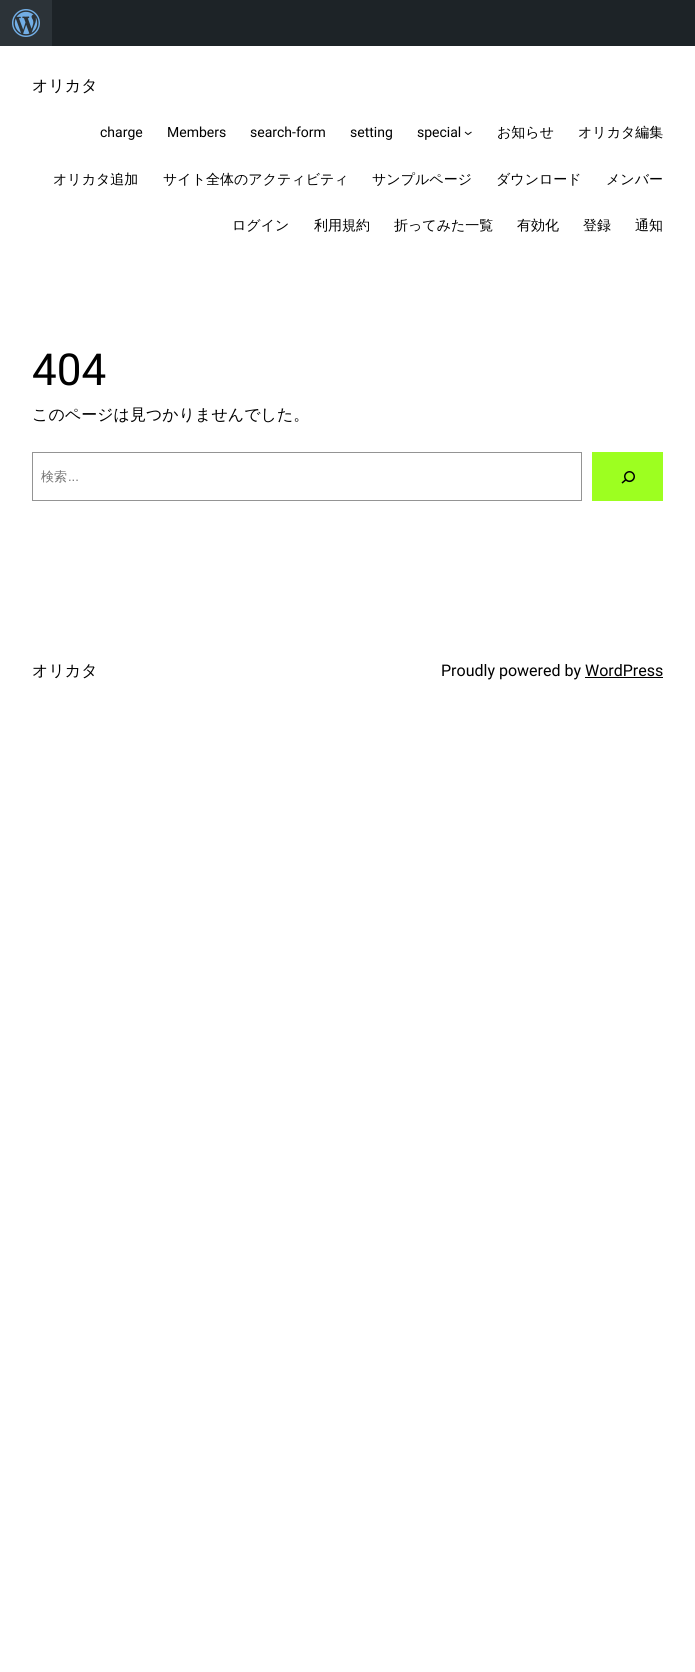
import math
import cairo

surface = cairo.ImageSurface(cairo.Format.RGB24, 695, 1672)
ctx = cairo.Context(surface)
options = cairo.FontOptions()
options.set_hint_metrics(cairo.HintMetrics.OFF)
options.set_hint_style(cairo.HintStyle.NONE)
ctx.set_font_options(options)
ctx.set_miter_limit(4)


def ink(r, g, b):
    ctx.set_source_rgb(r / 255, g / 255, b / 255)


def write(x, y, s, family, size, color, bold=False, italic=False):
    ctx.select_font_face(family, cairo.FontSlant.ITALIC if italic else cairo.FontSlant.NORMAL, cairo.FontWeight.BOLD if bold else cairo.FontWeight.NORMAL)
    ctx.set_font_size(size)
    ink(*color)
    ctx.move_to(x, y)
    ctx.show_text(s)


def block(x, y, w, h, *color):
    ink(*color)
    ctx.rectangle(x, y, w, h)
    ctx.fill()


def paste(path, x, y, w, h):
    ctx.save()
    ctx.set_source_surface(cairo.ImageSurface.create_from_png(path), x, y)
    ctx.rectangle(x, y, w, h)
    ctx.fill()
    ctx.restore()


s1 = dict(family="WenQuanYi Zen Hei Medium", size=16, color=(0, 0, 0))
s2 = dict(family="Roboto", size=14, color=(0, 0, 0))
s3 = dict(family="WenQuanYi Zen Hei Medium", size=14, color=(0, 0, 0))
s4 = dict(family="Roboto", size=44, color=(0, 0, 0))
s5 = dict(family="WenQuanYi Zen Hei Medium", size=13, color=(117, 117, 117))
s6 = dict(family="Liberation Sans", size=13, color=(117, 117, 117))
s7 = dict(family="Roboto", size=16, color=(0, 0, 0))

ink(255, 255, 255)
ctx.paint()
block(52, 0, 643, 46, 29, 35, 39)
block(0, 0, 52, 46, 44, 51, 56)
paste("pic1.png", 12, 9, 28, 28)
write(32, 91, "オリカタ", **s1)
write(100, 137, "charge", **s2)
write(167, 137, "Members", **s2)
write(250, 137, "search-form", **s2)
write(350, 137, "setting", **s2)
write(417, 137, "special", **s2)
ctx.new_path()
ctx.move_to(465, 132)
ctx.line_to(468, 134.5)
ctx.line_to(471.5, 132)
ctx.set_line_width(1)
ctx.stroke()
write(497, 137, "お知らせ", **s3)
write(578, 137, "オリカタ編集", **s3)
write(53, 184, "オリカタ追加", **s3)
write(163, 184, "サイト全体のアクティビティ", **s3)
write(372, 184, "サンプルページ", **s3)
write(496, 184, "ダウンロード", **s3)
write(606, 184, "メンバー", **s3)
write(232, 230, "ログイン", **s3)
write(314, 230, "利用規約", **s3)
write(394, 230, "折ってみた一覧", **s3)
write(517, 230, "有効化", **s3)
write(583, 230, "登録", **s3)
write(635, 230, "通知", **s3)
write(32, 385, "404", **s4)
write(32, 420, "このページは見つかりませんでした。", **s1)
ctx.rectangle(32.5, 452.5, 549, 48)
ink(148, 148, 148)
ctx.stroke()
write(41, 481, "検索", **s5)
write(68, 481, "...", **s6)
block(592, 452, 71, 49, 157, 255, 32)
paste("pic2.png", 621, 471, 14, 13)
write(32, 676, "オリカタ", **s1)
write(441, 676, "Proudly powered by WordPress", **s7)
block(585, 677, 78, 1, 0, 0, 0)
surface.write_to_png("screenshot.png")
